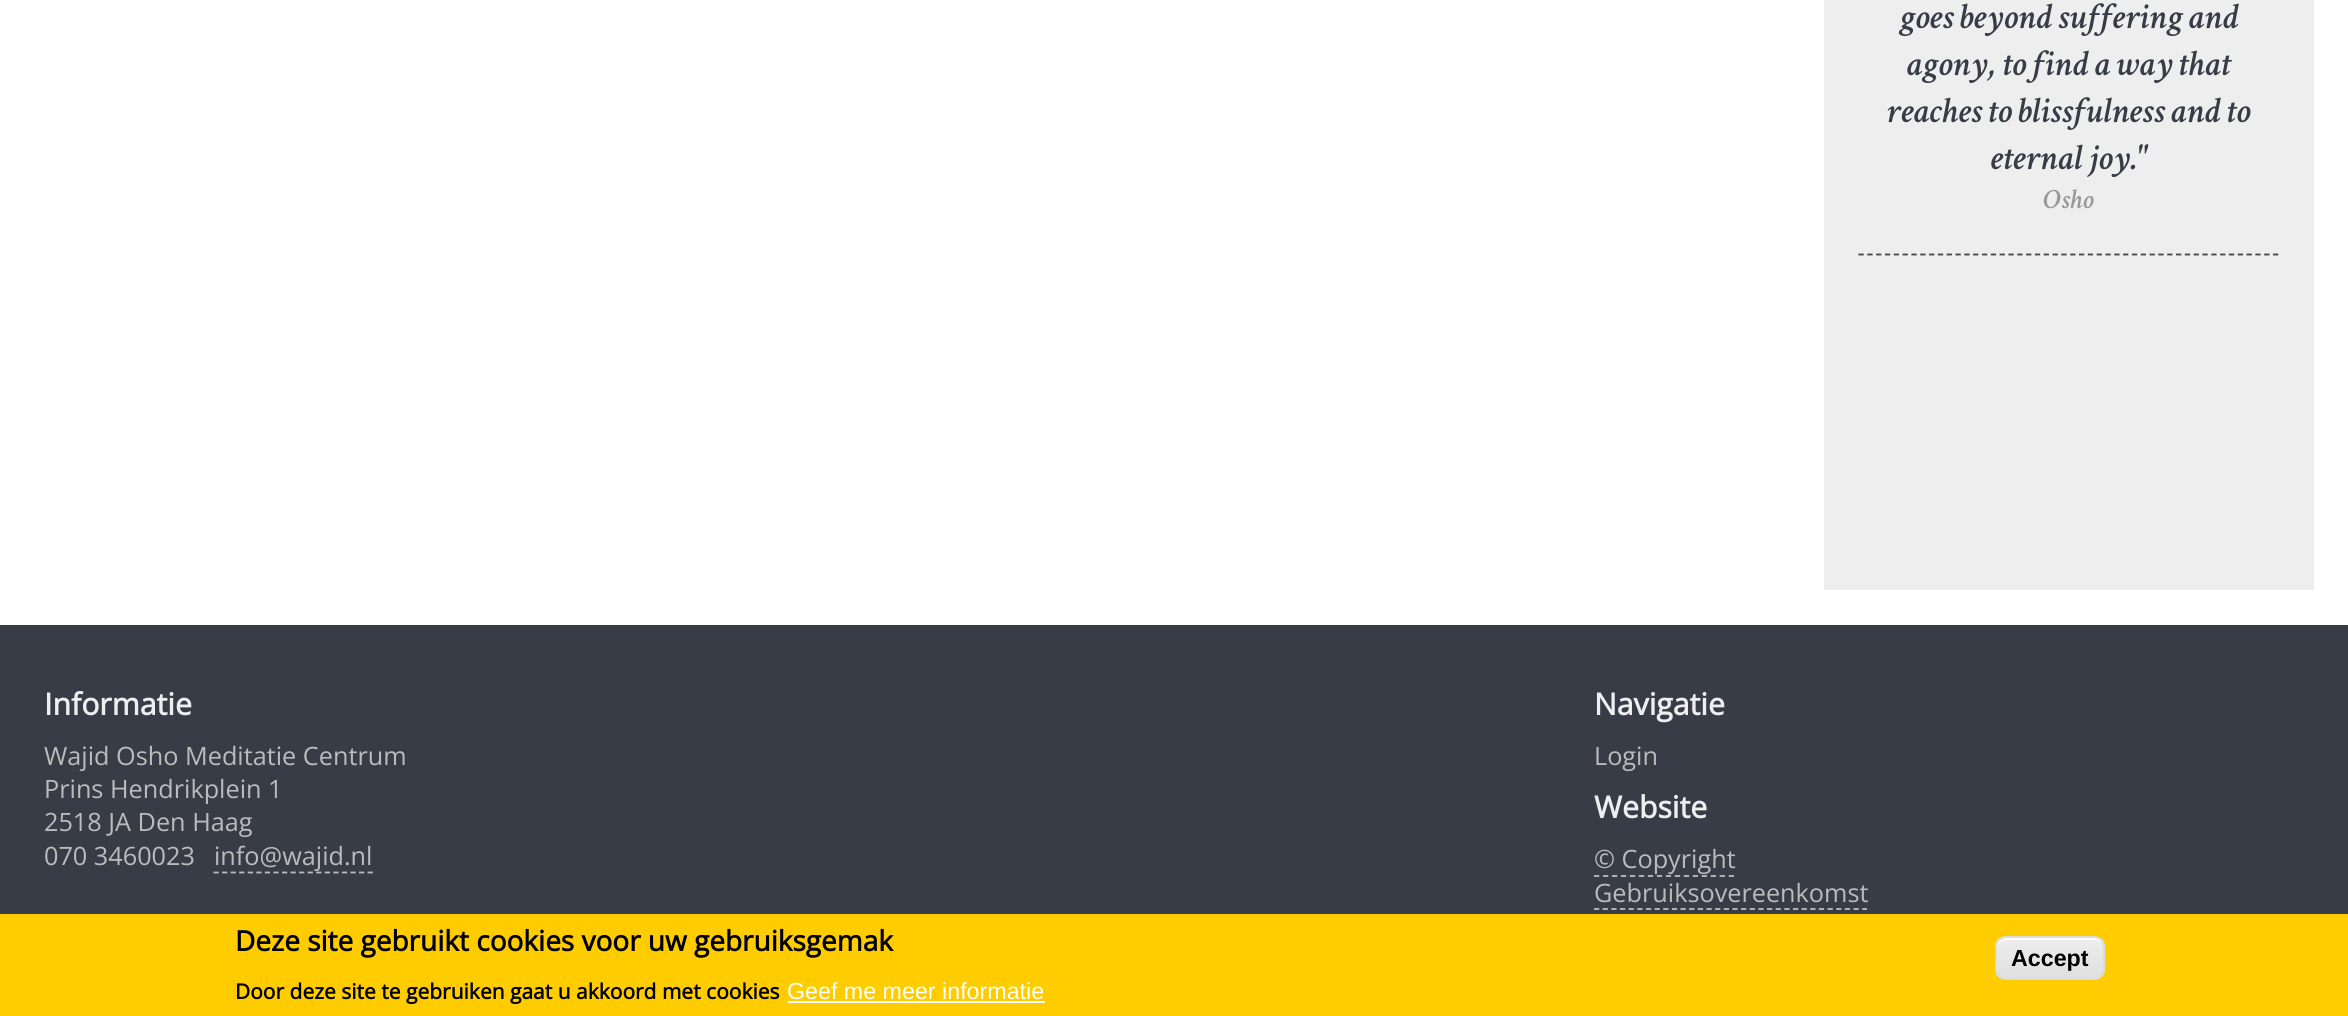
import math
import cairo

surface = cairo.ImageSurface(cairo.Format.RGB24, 2348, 1016)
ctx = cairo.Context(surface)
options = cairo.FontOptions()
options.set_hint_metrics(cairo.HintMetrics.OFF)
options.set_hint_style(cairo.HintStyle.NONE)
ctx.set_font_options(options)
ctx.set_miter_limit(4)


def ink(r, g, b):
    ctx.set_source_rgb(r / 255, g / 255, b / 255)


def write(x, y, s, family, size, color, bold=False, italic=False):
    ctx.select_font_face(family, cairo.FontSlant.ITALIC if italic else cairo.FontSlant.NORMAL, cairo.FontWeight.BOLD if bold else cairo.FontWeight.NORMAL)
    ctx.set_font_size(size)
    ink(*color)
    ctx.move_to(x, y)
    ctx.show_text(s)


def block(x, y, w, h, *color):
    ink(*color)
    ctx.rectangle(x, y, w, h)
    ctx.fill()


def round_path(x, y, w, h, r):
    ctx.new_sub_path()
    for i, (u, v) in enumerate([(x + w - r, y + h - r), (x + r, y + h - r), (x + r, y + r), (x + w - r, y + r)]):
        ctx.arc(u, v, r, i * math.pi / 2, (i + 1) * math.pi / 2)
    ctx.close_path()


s1 = dict(family="Crimson Text SemiBold", size=36.4, color=(55, 60, 71), italic=True)
s2 = dict(family="Crimson Text SemiBold", size=28, color=(153, 153, 153), italic=True)
s3 = dict(family="Open Sans", size=30.25, color=(238, 238, 238), bold=True)
s4 = dict(family="Open Sans", size=25.25, color=(187, 187, 187))
s5 = dict(family="Open Sans", size=28, color=(0, 0, 0), bold=True)
s6 = dict(family="Open Sans", size=21, color=(0, 0, 0), bold=True)
s7 = dict(family="Liberation Sans", size=23.25, color=(255, 255, 255))
s8 = dict(family="Liberation Sans", size=23.25, color=(0, 0, 0), bold=True)

ink(55, 60, 71)
ctx.paint()
block(0, 0, 2348, 625, 255, 255, 255)
block(1824, 0, 490, 590, 238, 238, 238)
write(1899, 28, "goes beyond suffering and", **s1)
write(1906, 75, "agony, to find a way that", **s1)
write(1886, 122, "reaches to blissfulness and to", **s1)
write(1990, 169, "eternal joy.\"", **s1)
write(2043, 208, "Osho", **s2)
ctx.new_path()
ctx.move_to(1858.5, 254.5)
ctx.line_to(2278.5, 254.5)
ink(68, 68, 68)
ctx.set_line_width(1.8)
ctx.set_dash([5.25, 3.57])
ctx.stroke()
write(44, 715, "Informatie", **s3)
write(44, 765, "Wajid Osho Meditatie Centrum", **s4)
write(44, 798, "Prins Hendrikplein 1", **s4)
write(44, 831, "2518 JA Den Haag", **s4)
write(44, 865, "070 3460023", **s4)
ctx.new_path()
ctx.move_to(213.5, 872.5)
ctx.line_to(373, 872.5)
ctx.set_dash([5.25, 3.31])
ctx.stroke()
write(214, 865, "info@wajid.nl", **s4)
write(1594, 715, "Navigatie", **s3)
write(1594, 765, "Login", **s4)
write(1594, 818, "Website", **s3)
write(1594, 868, "© Copyright", **s4)
ctx.new_path()
ctx.move_to(1594, 876)
ctx.line_to(1734, 876)
ctx.set_dash([5.25, 3.73])
ctx.stroke()
write(1594, 902, "Gebruiksovereenkomst", **s4)
ctx.new_path()
ctx.move_to(1594, 909)
ctx.line_to(1867, 909)
ctx.set_dash([5.25, 3.4])
ctx.stroke()
block(0, 914, 2348, 102, 255, 204, 0)
write(235, 951, "Deze site gebruikt cookies voor uw gebruiksgemak", **s5)
write(235, 999, "Door deze site te gebruiken gaat u akkoord met cookies", **s6)
write(787, 999, "Geef me meer informatie", **s7)
block(788, 1001, 257, 2, 255, 255, 255)
ctx.save()
round_path(1995, 936, 110, 44, 11)
ctx.clip()
gradient = cairo.LinearGradient(2050, 938, 2050, 978)
gradient.add_color_stop_rgba(0.05, 0.929, 0.929, 0.929, 1)
gradient.add_color_stop_rgba(1, 0.875, 0.875, 0.875, 1)
ctx.set_source(gradient)
ctx.rectangle(1995, 938, 110, 40)
ctx.fill()
ctx.restore()
ctx.new_path()
ctx.move_to(2006, 940)
ctx.line_to(2095, 940)
ctx.curve_to(2100, 940, 2104, 944, 2104, 948)
ctx.curve_to(2104, 935, 2089, 938, 2080, 938)
ctx.line_to(2021, 938)
ctx.curve_to(2012, 938, 1997, 935, 1997, 948)
ctx.curve_to(1997, 944, 2001, 940, 2006, 940)
ctx.close_path()
ctx.fill()
round_path(1996, 937, 108, 42, 10)
ink(220, 220, 220)
ctx.set_line_width(2)
ctx.set_dash([])
ctx.stroke()
write(2011, 966, "Accept", **s8)
surface.write_to_png("screenshot.png")
